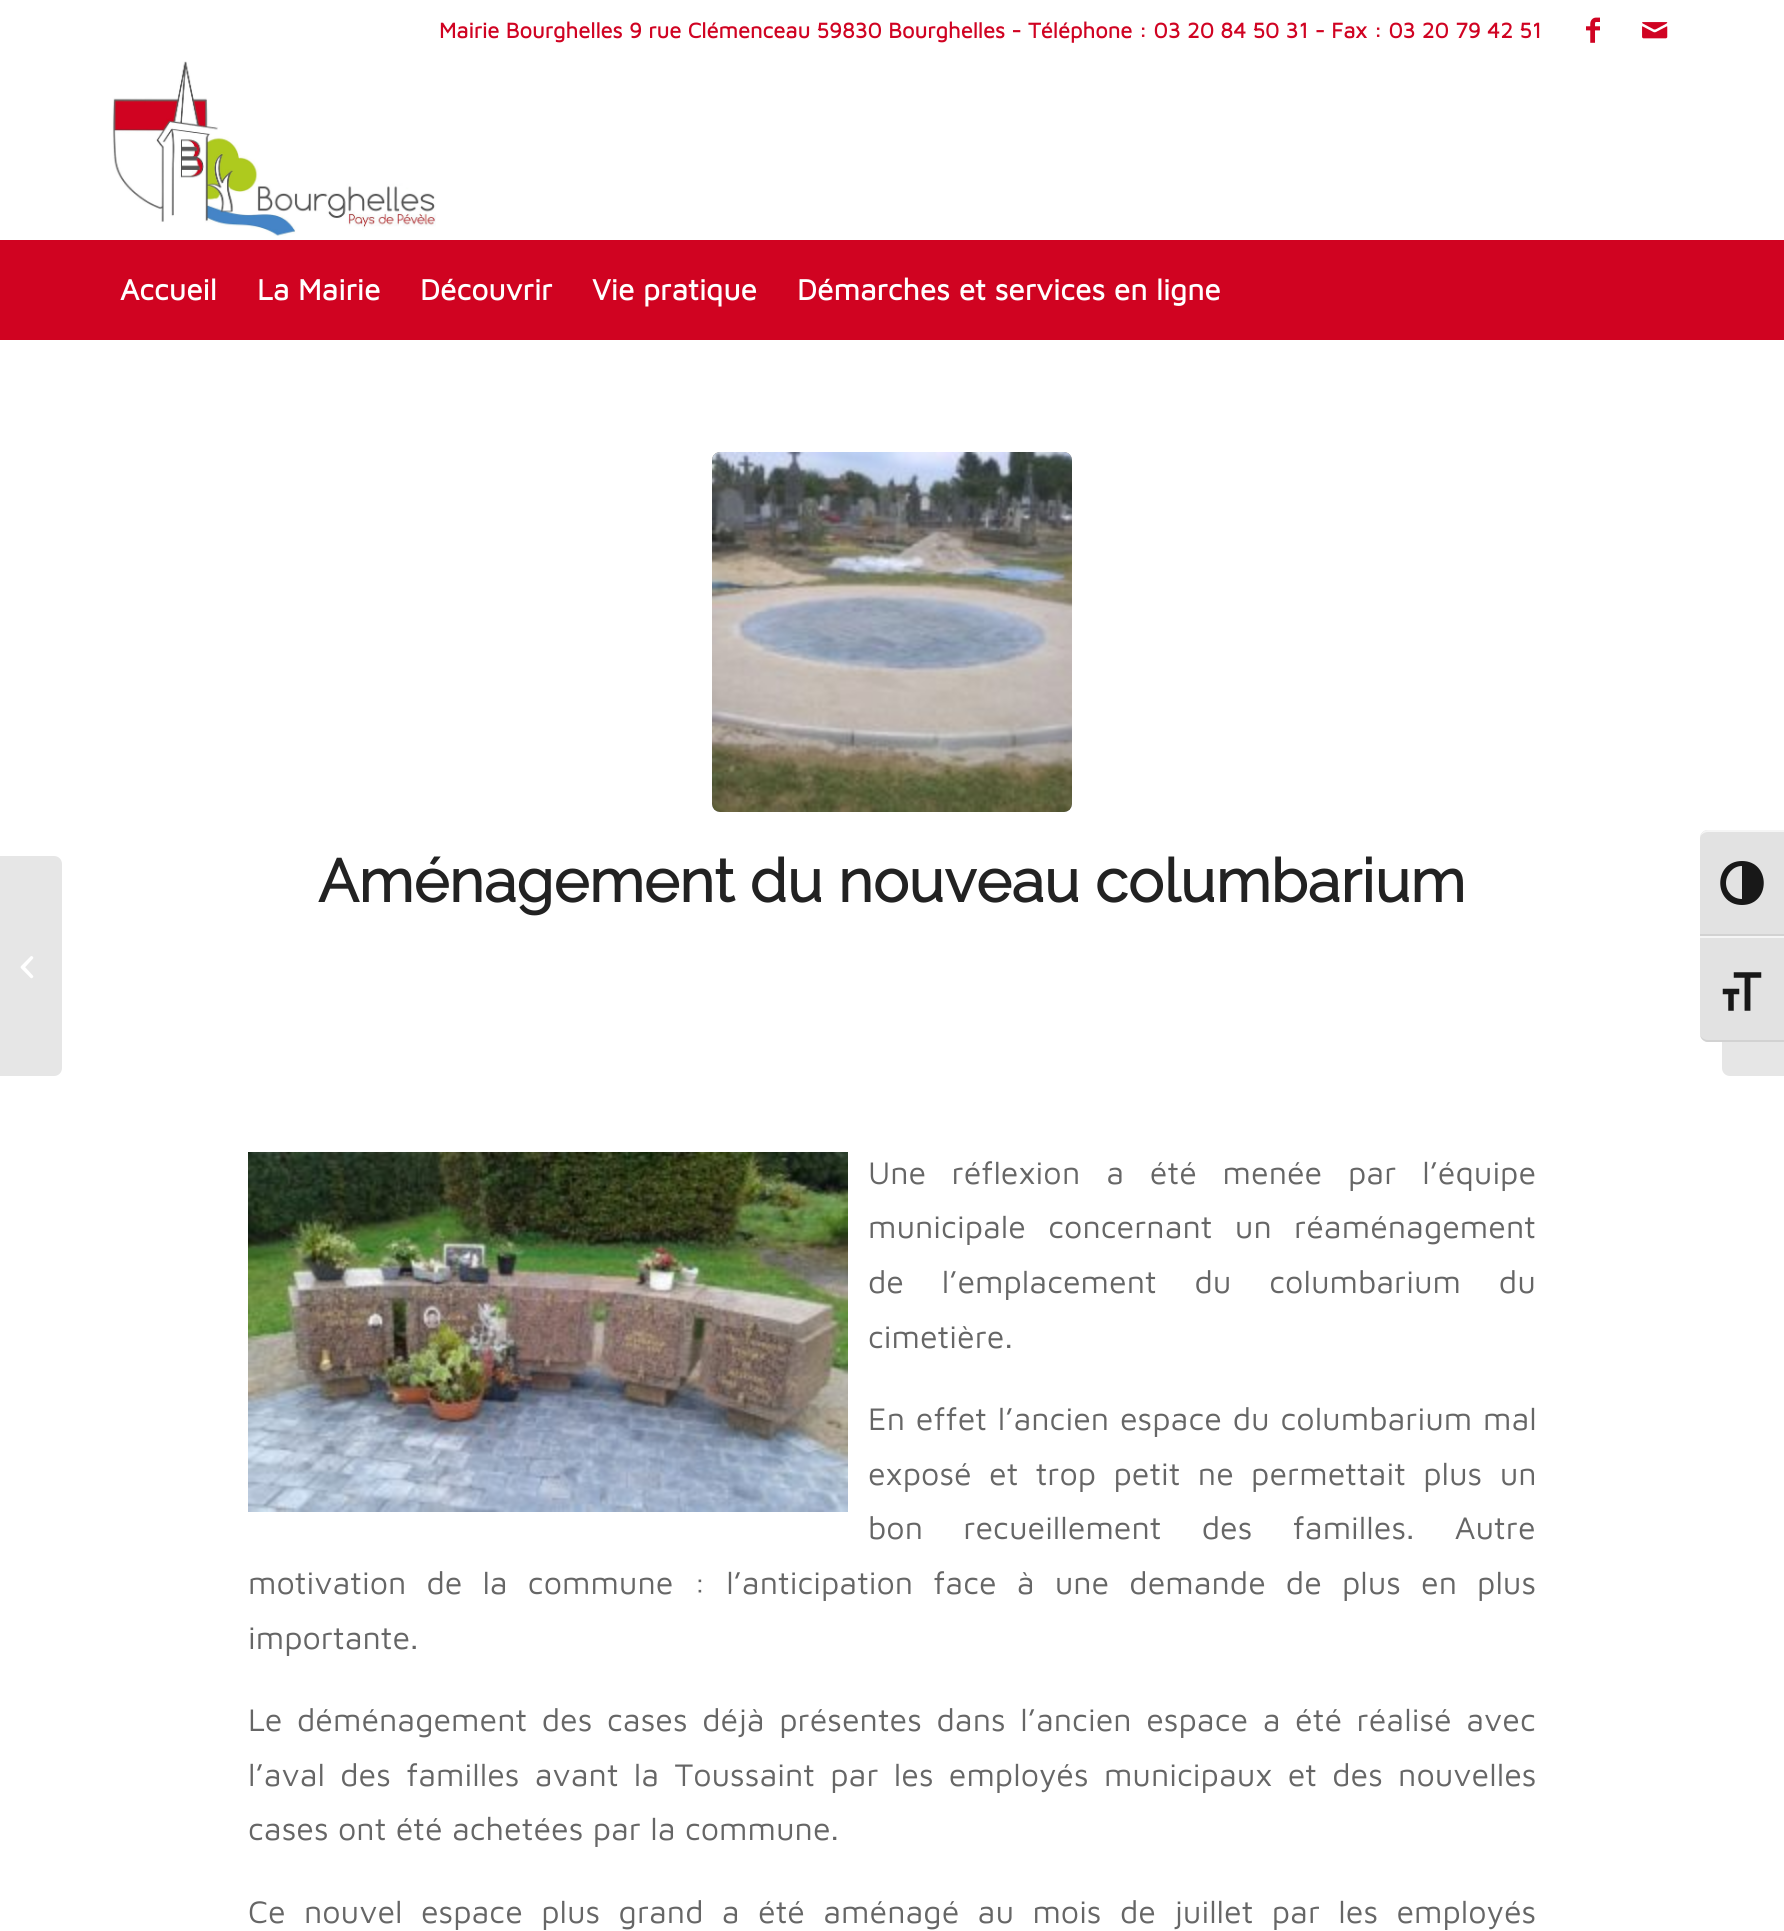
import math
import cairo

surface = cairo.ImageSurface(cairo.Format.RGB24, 1784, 1931)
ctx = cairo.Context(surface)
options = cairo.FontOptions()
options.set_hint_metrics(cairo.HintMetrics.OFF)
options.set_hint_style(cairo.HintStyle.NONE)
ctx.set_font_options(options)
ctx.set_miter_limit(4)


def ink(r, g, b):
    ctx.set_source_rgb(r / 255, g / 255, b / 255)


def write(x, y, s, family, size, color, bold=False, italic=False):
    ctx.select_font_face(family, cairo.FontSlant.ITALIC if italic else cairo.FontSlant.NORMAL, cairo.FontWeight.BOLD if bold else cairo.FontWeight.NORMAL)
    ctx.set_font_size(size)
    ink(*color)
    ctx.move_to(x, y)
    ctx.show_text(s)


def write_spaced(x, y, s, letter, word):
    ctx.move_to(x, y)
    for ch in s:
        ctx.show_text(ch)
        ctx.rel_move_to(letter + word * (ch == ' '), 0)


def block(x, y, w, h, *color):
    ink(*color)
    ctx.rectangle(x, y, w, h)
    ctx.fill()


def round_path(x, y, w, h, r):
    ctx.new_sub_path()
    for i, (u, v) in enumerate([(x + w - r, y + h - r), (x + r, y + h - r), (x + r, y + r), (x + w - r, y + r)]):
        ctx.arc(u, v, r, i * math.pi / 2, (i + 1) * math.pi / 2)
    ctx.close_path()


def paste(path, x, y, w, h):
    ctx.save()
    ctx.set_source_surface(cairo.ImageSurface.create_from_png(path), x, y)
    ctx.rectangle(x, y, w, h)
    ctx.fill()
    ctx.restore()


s1 = dict(family="Maven Pro", size=22, color=(208, 3, 34), bold=True)
s2 = dict(family="Maven Pro", size=30, color=(255, 255, 255), bold=True)
s3 = dict(family="Raleway", size=60, color=(34, 34, 34), bold=True)
s4 = dict(family="Maven Pro", size=32.2, color=(102, 102, 102))

ink(255, 255, 255)
ctx.paint()
write(439, 38, "Mairie Bourghelles 9 rue Clémenceau 59830 Bourghelles - Téléphone : 03 20 84 50 31 - Fax : 03 20 79 42 51", **s1)
paste("pic1.png", 1586, 17, 14, 26)
paste("pic2.png", 1642, 22, 26, 17)
paste("pic3.png", 112, 61, 324, 175)
block(0, 240, 1784, 100, 208, 3, 33)
write(120, 300, "Accueil", **s2)
write(257, 300, "La Mairie", **s2)
write(420, 300, "Découvrir", **s2)
write(592, 300, "Vie pratique", **s2)
write(797, 300, "Démarches et services en ligne", **s2)
ink(230, 230, 230)
ctx.new_path()
ctx.move_to(0, 856)
ctx.line_to(54, 856)
ctx.curve_to(58.5, 856, 62, 859.5, 62, 864)
ctx.line_to(62, 1068)
ctx.curve_to(62, 1072.5, 58.5, 1076, 54, 1076)
ctx.line_to(0, 1076)
ctx.close_path()
ctx.fill()
paste("pic4.png", 20, 956, 14, 23)
ink(145, 145, 145)
round_path(712, 452, 360, 360, 8)
ctx.fill()
paste("pic5.png", 712, 452, 360, 360)
write(318, 902, "Aménagement du nouveau columbarium", **s3)
paste("pic6.png", 248, 1152, 600, 360)
ctx.select_font_face("Maven Pro")
ctx.set_font_size(32.2)
ink(102, 102, 102)
write_spaced(868, 1184, "Une réflexio", 0, 16)
write_spaced(1062, 1184, "n a été menée par l’équipe", 0, 16.5)
write_spaced(868, 1238, "municipale concernant un réaménagement", 0, 13)
write_spaced(868, 1293, "de l’emplacement du columbarium du", 0, 28.5)
write(868, 1348, "cimetière.", **s4)
write_spaced(868, 1430, "En effet l’ancien espace du columbarium mal", 0, 1.5)
write_spaced(868, 1485, "exposé et trop petit ne permettait plus un", 0, 8)
write_spaced(868, 1539, "bon recueillement des familles. Autre", 0, 31)
write_spaced(248, 1594, "motivation de la commune : l’anticipation face à une demande de plus en plus", 0, 10.75)
write(248, 1649, "importante.", **s4)
write_spaced(248, 1731, "Le déménagement des cases déjà présentes dans l’ancien espace a été réalisé avec", 0, 5.25)
write_spaced(248, 1786, "l’aval des familles avant la Toussaint par les employés municipaux et des nouvelles", 0, 5.9)
write(248, 1840, "cases ont été achetées par la commune.", **s4)
write_spaced(248, 1923, "Ce nouvel espace plus grand a été aménagé au mois de juillet par les employés", 0, 9)
ink(230, 230, 230)
ctx.new_path()
ctx.move_to(1730, 856)
ctx.line_to(1784, 856)
ctx.line_to(1784, 1076)
ctx.line_to(1730, 1076)
ctx.curve_to(1725.5, 1076, 1722, 1072.5, 1722, 1068)
ctx.line_to(1722, 864)
ctx.curve_to(1722, 859.5, 1725.5, 856, 1730, 856)
ctx.close_path()
ctx.fill()
ink(226, 226, 226)
ctx.new_path()
ctx.move_to(1708, 830)
ctx.line_to(1784, 830)
ctx.line_to(1784, 936)
ctx.line_to(1700, 936)
ctx.line_to(1700, 838)
ctx.curve_to(1700, 833.5, 1703.5, 830, 1708, 830)
ctx.close_path()
ctx.fill()
ink(245, 245, 245)
ctx.new_path()
ctx.move_to(1708, 832)
ctx.line_to(1784, 832)
ctx.line_to(1784, 830)
ctx.line_to(1708, 830)
ctx.curve_to(1704, 830, 1700, 834, 1700, 838)
ctx.curve_to(1700, 835, 1704, 832, 1708, 832)
ctx.close_path()
ctx.fill()
block(1700, 934, 84, 2, 210, 210, 210)
ink(24, 24, 24)
ctx.new_path()
ctx.move_to(1742, 861)
ctx.curve_to(1713, 861, 1713, 905, 1742, 905)
ctx.curve_to(1771, 905, 1771, 861, 1742, 861)
ctx.close_path()
ctx.move_to(1726, 883)
ctx.curve_to(1726, 874, 1733, 866, 1742, 866)
ctx.line_to(1742, 899)
ctx.curve_to(1733, 899, 1726, 892, 1726, 883)
ctx.close_path()
ctx.fill()
ink(226, 226, 226)
ctx.new_path()
ctx.move_to(1700, 936)
ctx.line_to(1784, 936)
ctx.line_to(1784, 1042)
ctx.line_to(1708, 1042)
ctx.curve_to(1703.5, 1042, 1700, 1038.5, 1700, 1034)
ctx.close_path()
ctx.fill()
block(1700, 936, 84, 2, 245, 245, 245)
ink(210, 210, 210)
ctx.new_path()
ctx.move_to(1784, 1042)
ctx.line_to(1784, 1040)
ctx.line_to(1708, 1040)
ctx.curve_to(1704, 1040, 1700, 1037, 1700, 1034)
ctx.curve_to(1700, 1038, 1704, 1042, 1708, 1042)
ctx.close_path()
ctx.fill()
paste("pic7.png", 1722, 972, 40, 39)
surface.write_to_png("screenshot.png")
